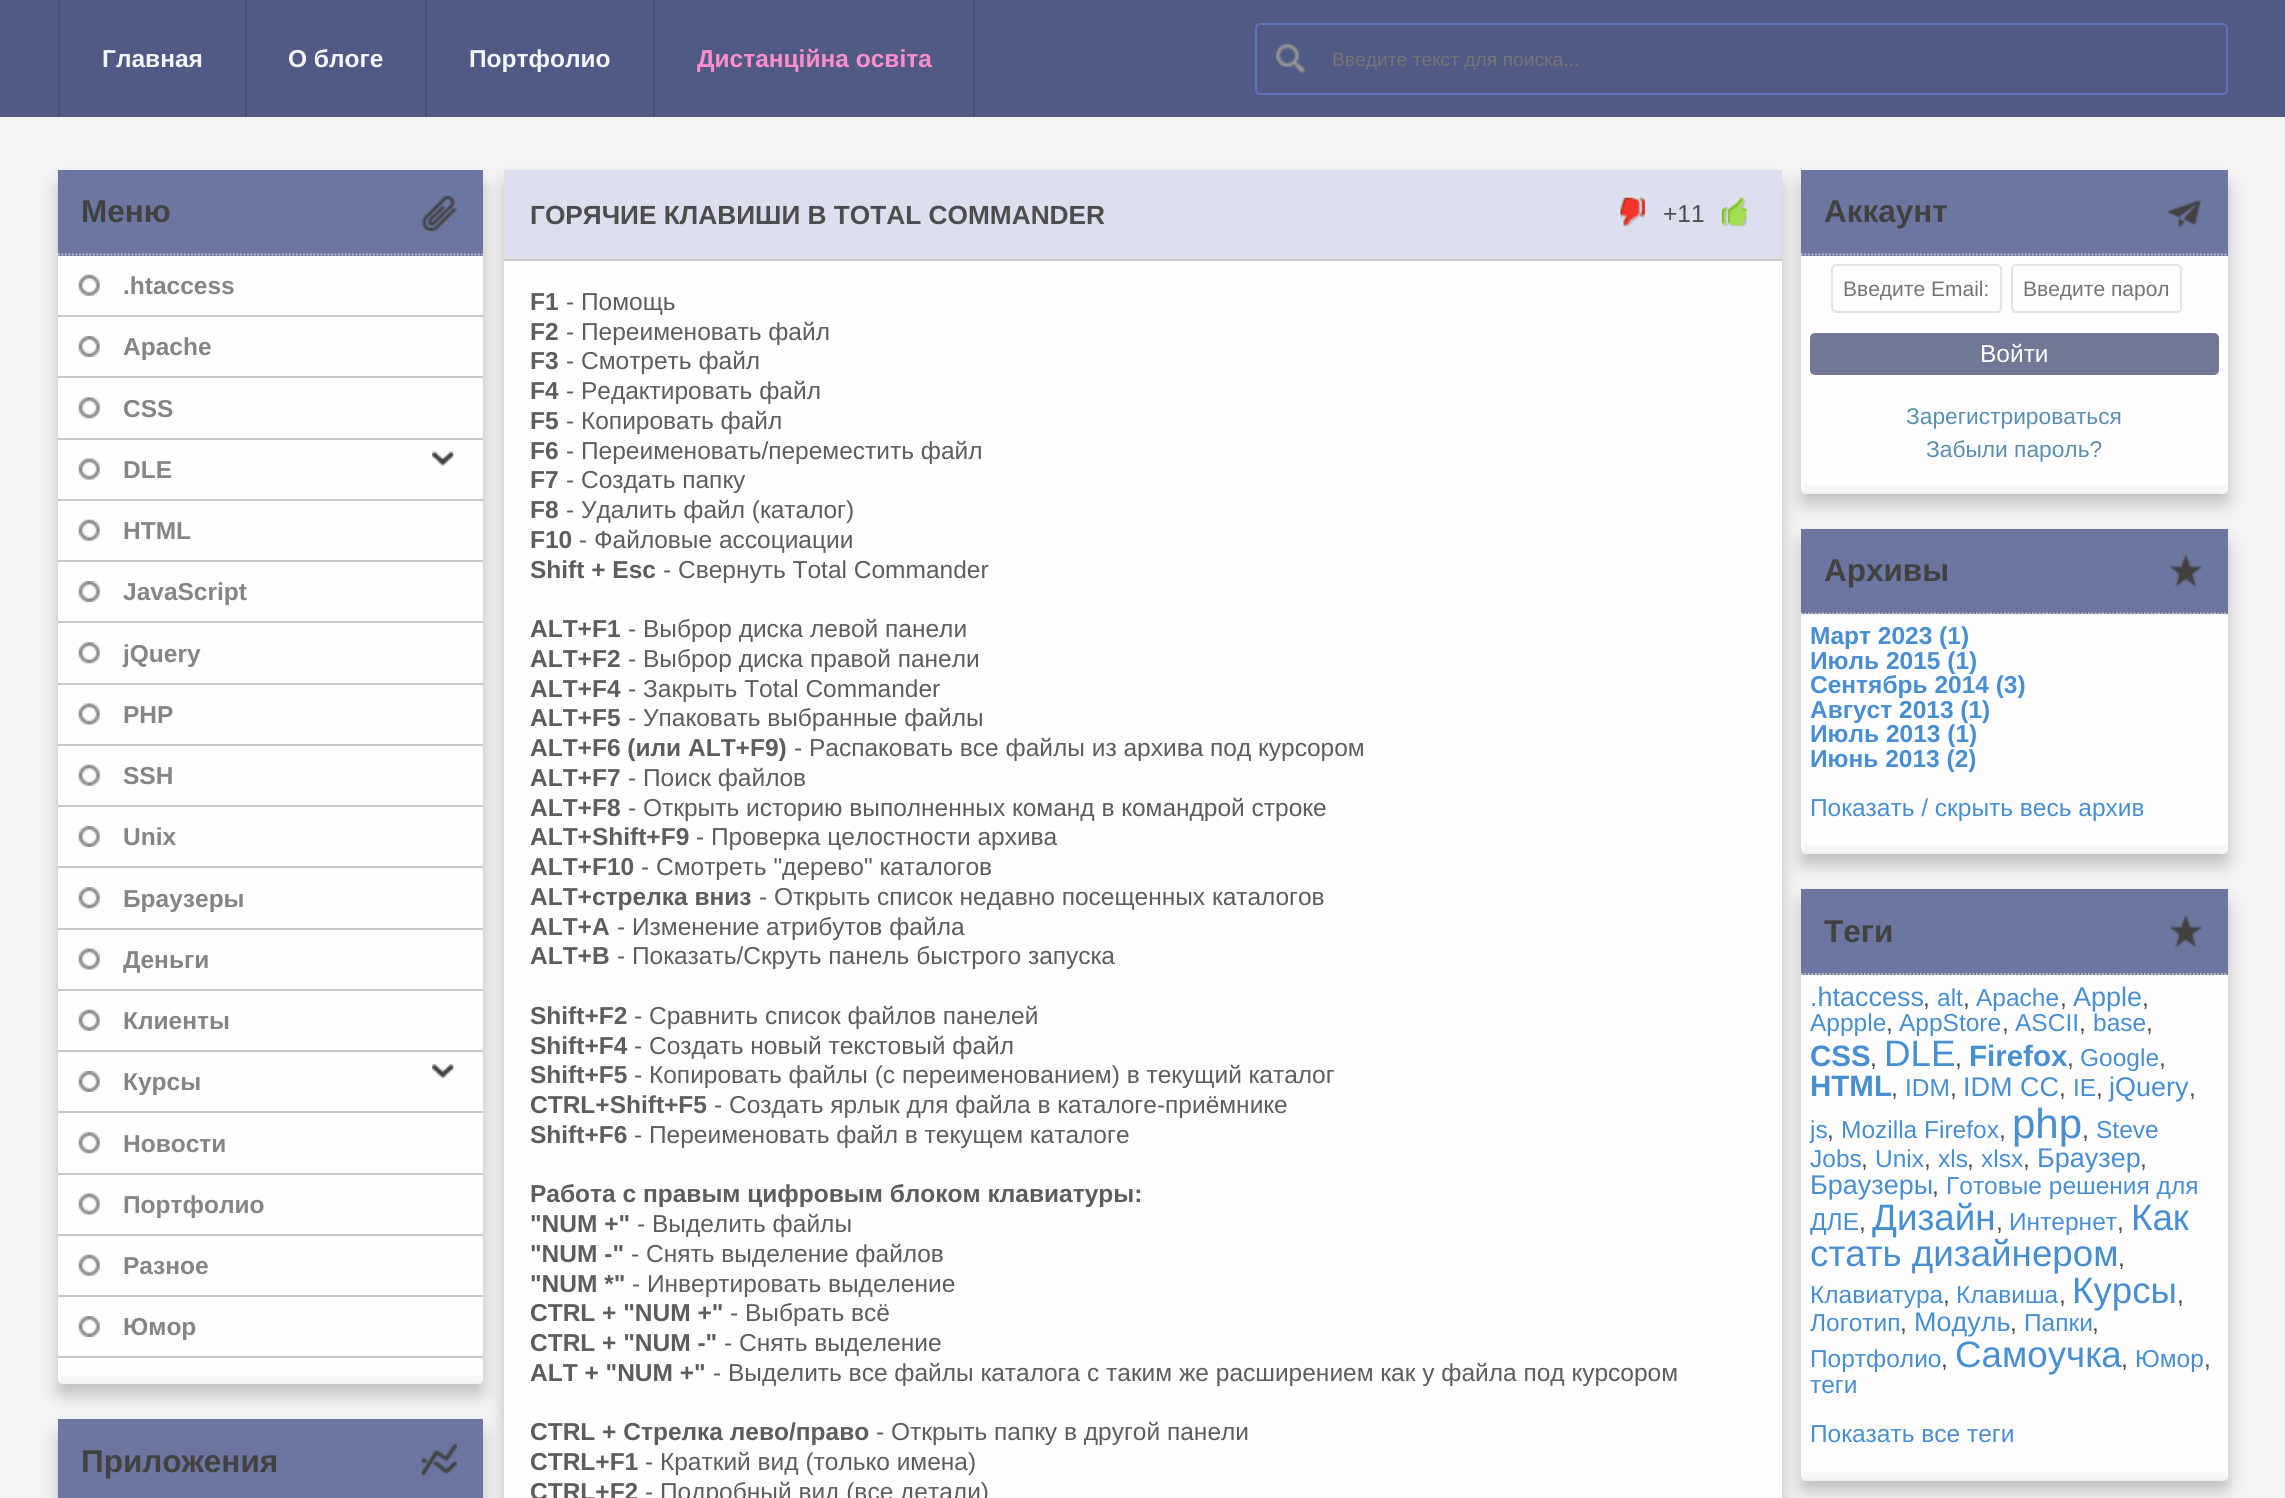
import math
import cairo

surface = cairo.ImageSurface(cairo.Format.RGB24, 2285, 1498)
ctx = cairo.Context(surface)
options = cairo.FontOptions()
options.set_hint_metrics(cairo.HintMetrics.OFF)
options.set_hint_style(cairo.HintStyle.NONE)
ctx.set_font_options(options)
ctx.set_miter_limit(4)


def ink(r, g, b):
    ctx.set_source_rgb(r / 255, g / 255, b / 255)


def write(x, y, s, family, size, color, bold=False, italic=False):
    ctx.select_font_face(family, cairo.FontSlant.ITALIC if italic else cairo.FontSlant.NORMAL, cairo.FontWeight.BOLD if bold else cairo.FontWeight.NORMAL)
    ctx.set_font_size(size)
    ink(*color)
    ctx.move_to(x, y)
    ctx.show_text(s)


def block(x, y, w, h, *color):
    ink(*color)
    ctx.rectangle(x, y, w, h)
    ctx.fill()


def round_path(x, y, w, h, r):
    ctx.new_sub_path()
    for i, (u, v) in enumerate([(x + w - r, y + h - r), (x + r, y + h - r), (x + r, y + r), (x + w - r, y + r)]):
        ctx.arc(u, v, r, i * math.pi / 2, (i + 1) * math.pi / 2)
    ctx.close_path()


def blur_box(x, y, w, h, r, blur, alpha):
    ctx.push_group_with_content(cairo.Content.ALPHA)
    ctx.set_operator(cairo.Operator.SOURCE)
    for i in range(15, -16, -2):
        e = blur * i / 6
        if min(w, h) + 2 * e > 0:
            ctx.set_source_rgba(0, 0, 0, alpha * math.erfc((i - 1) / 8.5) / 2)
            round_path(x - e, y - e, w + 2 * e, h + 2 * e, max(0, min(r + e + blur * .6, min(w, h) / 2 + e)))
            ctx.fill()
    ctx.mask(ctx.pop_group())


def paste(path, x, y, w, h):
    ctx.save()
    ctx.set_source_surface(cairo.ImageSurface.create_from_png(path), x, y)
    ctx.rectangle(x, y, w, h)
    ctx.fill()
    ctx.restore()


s1 = dict(family="Liberation Sans", size=24.5, color=(245, 245, 245), bold=True)
s2 = dict(family="Liberation Sans", size=24.5, color=(255, 142, 204), bold=True)
s3 = dict(family="Liberation Sans", size=19.25, color=(117, 117, 117))
s4 = dict(family="Liberation Sans", size=31.5, color=(65, 65, 64), bold=True)
s5 = dict(family="Liberation Sans", size=24.5, color=(133, 133, 133), bold=True)
s6 = dict(family="Liberation Sans", size=26.25, color=(77, 77, 77), bold=True)
s7 = dict(family="Liberation Sans", size=24.5, color=(77, 77, 77))
s8 = dict(family="Liberation Sans", size=24.5, color=(93, 93, 92), bold=True)
s9 = dict(family="Liberation Sans", size=24.5, color=(93, 93, 92))
s10 = dict(family="Liberation Sans", size=21, color=(117, 117, 117))
s11 = dict(family="Liberation Sans", size=24.5, color=(255, 255, 255))
s12 = dict(family="Liberation Sans", size=22.75, color=(89, 144, 178))
s13 = dict(family="Liberation Sans", size=24.5, color=(72, 143, 210), bold=True)
s14 = dict(family="Liberation Sans", size=24.5, color=(72, 143, 210))
s15 = dict(family="Liberation Sans", size=27, color=(72, 143, 210))
s16 = dict(family="Liberation Sans", size=29.5, color=(72, 143, 210), bold=True)
s17 = dict(family="Liberation Sans", size=36.75, color=(72, 143, 210))
s18 = dict(family="Liberation Sans", size=42, color=(72, 143, 210))

ink(245, 245, 245)
ctx.paint()
block(0, 0, 2285, 117, 80, 90, 132)
block(58, 0, 2, 117, 71, 80, 116)
block(245, 0, 2, 117, 71, 80, 116)
write(102, 67, "Главная", **s1)
block(425, 0, 2, 117, 71, 80, 116)
write(288, 67, "О блоге", **s1)
block(653, 0, 2, 117, 71, 80, 116)
write(469, 67, "Портфолио", **s1)
block(973, 0, 2, 117, 71, 80, 116)
write(697, 67, "Дистанційна освіта", **s2)
paste("pic1.png", 1275, 43, 31, 31)
round_path(1256, 24, 971, 70, 4)
ink(96, 114, 188)
ctx.stroke()
write(1332, 66, "Введите текст для поиска...", **s3)
ink(190, 190, 190)
blur_box(504, 182, 1278, 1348, 5, 9, 1)
block(504, 261, 1278, 1237, 255, 253, 253)
block(504, 170, 1278, 89, 220, 223, 237)
block(504, 259, 1278, 2, 201, 199, 199)
ink(190, 190, 190)
blur_box(58, 182, 425, 1213, 5, 9, 1)
ink(241, 241, 241)
ctx.new_path()
ctx.move_to(58, 1379)
ctx.curve_to(58, 1382, 60, 1384, 63, 1384)
ctx.line_to(478, 1384)
ctx.curve_to(482, 1384, 483, 1381, 483, 1377)
ctx.curve_to(483, 1380, 481, 1382, 478, 1382)
ctx.line_to(63, 1382)
ctx.curve_to(61, 1382, 59, 1381, 58, 1379)
ctx.close_path()
ctx.fill()
ink(255, 253, 253)
round_path(58, 170, 425, 1213, 5)
ctx.fill()
block(61, 1376, 420, 7, 247, 245, 245)
block(58, 170, 425, 86, 108, 118, 160)
ctx.new_path()
ctx.move_to(58, 254.5)
ctx.line_to(483, 254.5)
ink(201, 200, 200)
ctx.set_line_width(1.8)
ctx.set_dash([1.75, 1.75])
ctx.stroke()
write(81, 222, "Меню", **s4)
paste("pic2.png", 421, 196, 36, 35)
paste("pic3.png", 78, 274, 22, 22)
block(58, 315, 425, 2, 201, 200, 200)
write(123, 294, ".htaccess", **s5)
paste("pic4.png", 78, 336, 22, 21)
block(58, 376, 425, 2, 201, 200, 200)
write(123, 355, "Apache", **s5)
paste("pic5.png", 78, 397, 22, 22)
block(58, 438, 425, 2, 201, 200, 200)
write(123, 417, "CSS", **s5)
paste("pic6.png", 78, 458, 22, 22)
block(58, 499, 425, 2, 201, 200, 200)
paste("pic7.png", 432, 451, 22, 15)
write(123, 478, "DLE", **s5)
paste("pic3.png", 78, 519, 22, 22)
block(58, 560, 425, 2, 201, 200, 200)
write(123, 539, "HTML", **s5)
paste("pic4.png", 78, 581, 22, 21)
block(58, 621, 425, 2, 201, 200, 200)
write(123, 600, "JavaScript", **s5)
paste("pic5.png", 78, 642, 22, 22)
block(58, 683, 425, 2, 201, 200, 200)
write(123, 662, "jQuery", **s5)
paste("pic6.png", 78, 703, 22, 22)
block(58, 744, 425, 2, 201, 200, 200)
write(123, 723, "PHP", **s5)
paste("pic3.png", 78, 764, 22, 22)
block(58, 805, 425, 2, 201, 200, 200)
write(123, 784, "SSH", **s5)
paste("pic4.png", 78, 826, 22, 21)
block(58, 866, 425, 2, 201, 200, 200)
write(123, 845, "Unix", **s5)
paste("pic5.png", 78, 887, 22, 22)
block(58, 928, 425, 2, 201, 200, 200)
write(123, 907, "Браузеры", **s5)
paste("pic6.png", 78, 948, 22, 22)
block(58, 989, 425, 2, 201, 200, 200)
write(123, 968, "Деньги", **s5)
paste("pic3.png", 78, 1009, 22, 22)
block(58, 1050, 425, 2, 201, 200, 200)
write(123, 1029, "Клиенты", **s5)
paste("pic4.png", 78, 1071, 22, 21)
block(58, 1111, 425, 2, 201, 200, 200)
paste("pic8.png", 432, 1064, 22, 14)
write(123, 1090, "Курсы", **s5)
paste("pic5.png", 78, 1132, 22, 22)
block(58, 1173, 425, 2, 201, 200, 200)
write(123, 1152, "Новости", **s5)
paste("pic6.png", 78, 1193, 22, 22)
block(58, 1234, 425, 2, 201, 200, 200)
write(123, 1213, "Портфолио", **s5)
paste("pic3.png", 78, 1254, 22, 22)
block(58, 1295, 425, 2, 201, 200, 200)
write(123, 1274, "Разное", **s5)
paste("pic4.png", 78, 1316, 22, 21)
block(58, 1356, 425, 2, 201, 200, 200)
write(123, 1335, "Юмор", **s5)
ink(190, 190, 190)
blur_box(58, 1432, 425, 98, 5, 9, 1)
block(58, 1419, 425, 79, 108, 118, 160)
write(81, 1472, "Приложения", **s4)
paste("pic9.png", 421, 1443, 36, 33)
write(530, 224, "ГОРЯЧИЕ КЛАВИШИ В TOTAL COMMANDER", **s6)
paste("pic10.png", 1620, 197, 25, 29)
write(1663, 222, "+11", **s7)
paste("pic11.png", 1722, 197, 25, 29)
write(530, 310, "F1", **s8)
write(566, 310, "- Помощь", **s9)
write(530, 340, "F2", **s8)
write(566, 340, "- Переименовать файл", **s9)
write(530, 369, "F3", **s8)
write(566, 369, "- Смотреть файл", **s9)
write(530, 399, "F4", **s8)
write(566, 399, "- Редактировать файл", **s9)
write(530, 429, "F5", **s8)
write(566, 429, "- Копировать файл", **s9)
write(530, 459, "F6", **s8)
write(566, 459, "- Переименовать/переместить файл", **s9)
write(530, 488, "F7", **s8)
write(566, 488, "- Создать папку", **s9)
write(530, 518, "F8", **s8)
write(566, 518, "- Удалить файл (каталог)", **s9)
write(530, 548, "F10", **s8)
write(579, 548, "- Файловые ассоциации", **s9)
write(530, 578, "Shift + Esc", **s8)
write(663, 578, "- Свернуть Total Commander", **s9)
write(530, 637, "ALT+F1", **s8)
write(628, 637, "- Выброр диска левой панели", **s9)
write(530, 667, "ALT+F2", **s8)
write(628, 667, "- Выброр диска правой панели", **s9)
write(530, 697, "ALT+F4", **s8)
write(628, 697, "- Закрыть Total Commander", **s9)
write(530, 726, "ALT+F5", **s8)
write(628, 726, "- Упаковать выбранные файлы", **s9)
write(530, 756, "ALT+F6 (или ALT+F9)", **s8)
write(794, 756, "- Распаковать все файлы из архива под курсором", **s9)
write(530, 786, "ALT+F7", **s8)
write(628, 786, "- Поиск файлов", **s9)
write(530, 816, "ALT+F8", **s8)
write(628, 816, "- Открыть историю выполненных команд в командрой строке", **s9)
write(530, 845, "ALT+Shift+F9", **s8)
write(696, 845, "- Проверка целостности архива", **s9)
write(530, 875, "ALT+F10", **s8)
write(641, 875, "- Смотреть \"дерево\" каталогов", **s9)
write(530, 905, "ALT+стрелка вниз", **s8)
write(759, 905, "- Открыть список недавно посещенных каталогов", **s9)
write(530, 935, "ALT+A", **s8)
write(617, 935, "- Изменение атрибутов файла", **s9)
write(530, 964, "ALT+B", **s8)
write(617, 964, "- Показать/Скруть панель быстрого запуска", **s9)
write(530, 1024, "Shift+F2", **s8)
write(634, 1024, "- Сравнить список файлов панелей", **s9)
write(530, 1054, "Shift+F4", **s8)
write(634, 1054, "- Создать новый текстовый файл", **s9)
write(530, 1083, "Shift+F5", **s8)
write(634, 1083, "- Копировать файлы (с переименованием) в текущий каталог", **s9)
write(530, 1113, "CTRL+Shift+F5", **s8)
write(714, 1113, "- Создать ярлык для файла в каталоге-приёмнике", **s9)
write(530, 1143, "Shift+F6", **s8)
write(634, 1143, "- Переименовать файл в текущем каталоге", **s9)
write(530, 1202, "Работа с правым цифровым блоком клавиатуры:", **s8)
write(530, 1232, "\"NUM +\"", **s8)
write(637, 1232, "- Выделить файлы", **s9)
write(530, 1262, "\"NUM -\"", **s8)
write(631, 1262, "- Снять выделение файлов", **s9)
write(530, 1292, "\"NUM *\"", **s8)
write(632, 1292, "- Инвертировать выделение", **s9)
write(530, 1321, "CTRL + \"NUM +\"", **s8)
write(730, 1321, "- Выбрать всё", **s9)
write(530, 1351, "CTRL + \"NUM -\"", **s8)
write(724, 1351, "- Снять выделение", **s9)
write(530, 1381, "ALT + \"NUM +\"", **s8)
write(713, 1381, "- Выделить все файлы каталога с таким же расширением как у файла под курсором", **s9)
write(530, 1440, "CTRL + Стрелка лево/право", **s8)
write(876, 1440, "- Открыть папку в другой панели", **s9)
write(530, 1470, "CTRL+F1", **s8)
write(645, 1470, "- Краткий вид (только имена)", **s9)
write(530, 1500, "CTRL+F2", **s8)
write(645, 1500, "- Подробный вид (все детали)", **s9)
ink(190, 190, 190)
blur_box(1801, 182, 427, 322, 5, 9, 1)
ink(241, 241, 241)
ctx.new_path()
ctx.move_to(1801, 488)
ctx.line_to(1801, 489)
ctx.curve_to(1801, 492, 1803, 494, 1806, 494)
ctx.line_to(2223, 494)
ctx.curve_to(2226, 494, 2228, 492, 2228, 489)
ctx.line_to(2228, 175)
ctx.line_to(2228, 486)
ctx.curve_to(2228, 489, 2225, 492, 2222, 492)
ctx.line_to(1806, 492)
ctx.curve_to(1804, 492, 1802, 490, 1801, 488)
ctx.close_path()
ctx.fill()
ink(255, 253, 253)
round_path(1801, 170, 427, 322, 5)
ctx.fill()
block(1804, 485, 422, 7, 247, 245, 245)
block(1801, 170, 427, 86, 108, 118, 160)
ctx.new_path()
ctx.move_to(1801, 254.5)
ctx.line_to(2228, 254.5)
ink(201, 200, 200)
ctx.stroke()
write(1824, 222, "Аккаунт", **s4)
paste("pic12.png", 2166, 199, 36, 29)
round_path(1832, 265, 169, 47, 4)
ink(231, 227, 227)
ctx.set_line_width(2)
ctx.set_dash([])
ctx.stroke()
write(1843, 296, "Введите Email:", **s10)
round_path(2012, 265, 169, 47, 4)
ink(231, 227, 227)
ctx.stroke()
write(2023, 296, "Введите парол", **s10)
ink(113, 120, 149)
round_path(1810, 333, 409, 42, 5)
ctx.fill()
write(1980, 362, "Войти", **s11)
write(1906, 424, "Зарегистрироваться", **s12)
write(1926, 457, "Забыли пароль?", **s12)
ink(190, 190, 190)
blur_box(1801, 541, 427, 324, 5, 9, 1)
ink(241, 241, 241)
ctx.new_path()
ctx.move_to(1801, 849)
ctx.curve_to(1801, 852, 1803, 854, 1806, 854)
ctx.line_to(2223, 854)
ctx.curve_to(2226, 854, 2228, 852, 2228, 849)
ctx.line_to(2228, 533)
ctx.line_to(2228, 847)
ctx.curve_to(2228, 850, 2225, 852, 2222, 852)
ctx.line_to(1806, 852)
ctx.curve_to(1804, 852, 1802, 851, 1801, 849)
ctx.close_path()
ctx.fill()
ink(255, 253, 253)
round_path(1801, 529, 427, 323, 5)
ctx.fill()
block(1804, 845, 422, 7, 247, 245, 245)
block(1801, 529, 427, 85, 108, 118, 160)
ctx.new_path()
ctx.move_to(1801, 613.5)
ctx.line_to(2228, 613.5)
ink(201, 200, 200)
ctx.set_line_width(1.8)
ctx.set_dash([1.75, 1.75])
ctx.stroke()
write(1824, 581, "Apxивы", **s4)
paste("pic13.png", 2170, 554, 32, 33)
write(1810, 644, "Март 2023 (1)", **s13)
write(1810, 669, "Июль 2015 (1)", **s13)
write(1810, 693, "Сентябрь 2014 (3)", **s13)
write(1810, 718, "Август 2013 (1)", **s13)
write(1810, 742, "Июль 2013 (1)", **s13)
write(1810, 767, "Июнь 2013 (2)", **s13)
write(1810, 816, "Показать / скрыть весь архив", **s14)
ink(190, 190, 190)
blur_box(1801, 901, 427, 590, 5, 9, 1)
ink(241, 241, 241)
ctx.new_path()
ctx.move_to(1801, 1475)
ctx.line_to(1801, 1476)
ctx.curve_to(1801, 1479, 1803, 1481, 1806, 1481)
ctx.line_to(2223, 1481)
ctx.curve_to(2226, 1481, 2228, 1479, 2228, 1476)
ctx.line_to(2228, 894)
ctx.line_to(2228, 1474)
ctx.curve_to(2228, 1476, 2225, 1479, 2222, 1479)
ctx.line_to(1806, 1479)
ctx.curve_to(1804, 1479, 1802, 1477, 1801, 1475)
ctx.close_path()
ctx.fill()
ink(255, 253, 253)
round_path(1801, 889, 427, 590, 5)
ctx.fill()
block(1804, 1472, 422, 7, 247, 245, 245)
block(1801, 889, 427, 86, 108, 118, 160)
ctx.new_path()
ctx.move_to(1801, 974)
ctx.line_to(2228, 974)
ink(201, 200, 200)
ctx.stroke()
write(1824, 942, "Teги", **s4)
paste("pic14.png", 2170, 915, 32, 32)
write(1810, 1006, ".htaccess", **s15)
write(1923, 1006, ",", **s7)
write(1937, 1006, "alt", **s14)
write(1963, 1006, ",", **s7)
write(1976, 1006, "Apache", **s14)
write(2060, 1006, ",", **s7)
write(2073, 1006, "Apple", **s15)
write(2142, 1006, ",", **s7)
write(1810, 1031, "Appple", **s14)
write(1886, 1031, ",", **s7)
write(1899, 1031, "AppStore", **s14)
write(2002, 1031, ",", **s7)
write(2015, 1031, "ASCII", **s14)
write(2079, 1031, ",", **s7)
write(2093, 1031, "base", **s14)
write(2146, 1031, ",", **s7)
write(1810, 1066, "CSS", **s16)
write(1870, 1066, ",", **s7)
write(1884, 1066, "DLE", **s17)
write(1955, 1066, ",", **s7)
write(1969, 1066, "Firefox", **s16)
write(2067, 1066, ",", **s7)
write(2080, 1066, "Google", **s14)
write(2159, 1066, ",", **s7)
write(1810, 1096, "HTML", **s16)
write(1891, 1096, ",", **s7)
write(1905, 1096, "IDM", **s14)
write(1950, 1096, ",", **s7)
write(1963, 1096, "IDM CC", **s15)
write(2059, 1096, ",", **s7)
write(2073, 1096, "IE", **s14)
write(2096, 1096, ",", **s7)
write(2109, 1096, "jQuery", **s15)
write(2189, 1096, ",", **s7)
write(1810, 1138, "js", **s14)
write(1827, 1138, ",", **s7)
write(1841, 1138, "Mozilla Firefox", **s14)
write(1999, 1138, ",", **s7)
write(2012, 1138, "php", **s18)
write(2082, 1138, ",", **s7)
write(2096, 1138, "Steve", **s14)
write(1810, 1167, "Jobs", **s14)
write(1861, 1167, ",", **s7)
write(1875, 1167, "Unix", **s14)
write(1924, 1167, ",", **s7)
write(1938, 1167, "xls", **s14)
write(1967, 1167, ",", **s7)
write(1981, 1167, "xlsx", **s14)
write(2023, 1167, ",", **s7)
write(2037, 1167, "Браузер", **s15)
write(2140, 1167, ",", **s7)
write(1810, 1194, "Браузеры", **s15)
write(1932, 1194, ",", **s7)
write(1946, 1194, "Готовые решения для", **s14)
write(1810, 1230, "ДЛЕ", **s14)
write(1859, 1230, ",", **s7)
write(1872, 1230, "Дизайн", **s17)
write(1996, 1230, ",", **s7)
write(2009, 1230, "Интернет", **s14)
write(2117, 1230, ",", **s7)
write(2131, 1230, "Как", **s17)
write(1810, 1266, "стать дизайнером", **s17)
write(2118, 1266, ",", **s7)
write(1810, 1303, "Клавиатура", **s14)
write(1943, 1303, ",", **s7)
write(1956, 1303, "Клавиша", **s14)
write(2059, 1303, ",", **s7)
write(2072, 1303, "Курсы", **s17)
write(2177, 1303, ",", **s7)
write(1810, 1331, "Логотип", **s14)
write(1900, 1331, ",", **s7)
write(1914, 1331, "Модуль", **s15)
write(2010, 1331, ",", **s7)
write(2024, 1331, "Папки", **s14)
write(2092, 1331, ",", **s7)
write(1810, 1367, "Портфолио", **s14)
write(1941, 1367, ",", **s7)
write(1955, 1367, "Самоучка", **s17)
write(2121, 1367, ",", **s7)
write(2135, 1367, "Юмор", **s14)
write(2204, 1367, ",", **s7)
write(1810, 1393, "теги", **s14)
write(1810, 1442, "Показать все теги", **s14)
surface.write_to_png("screenshot.png")
